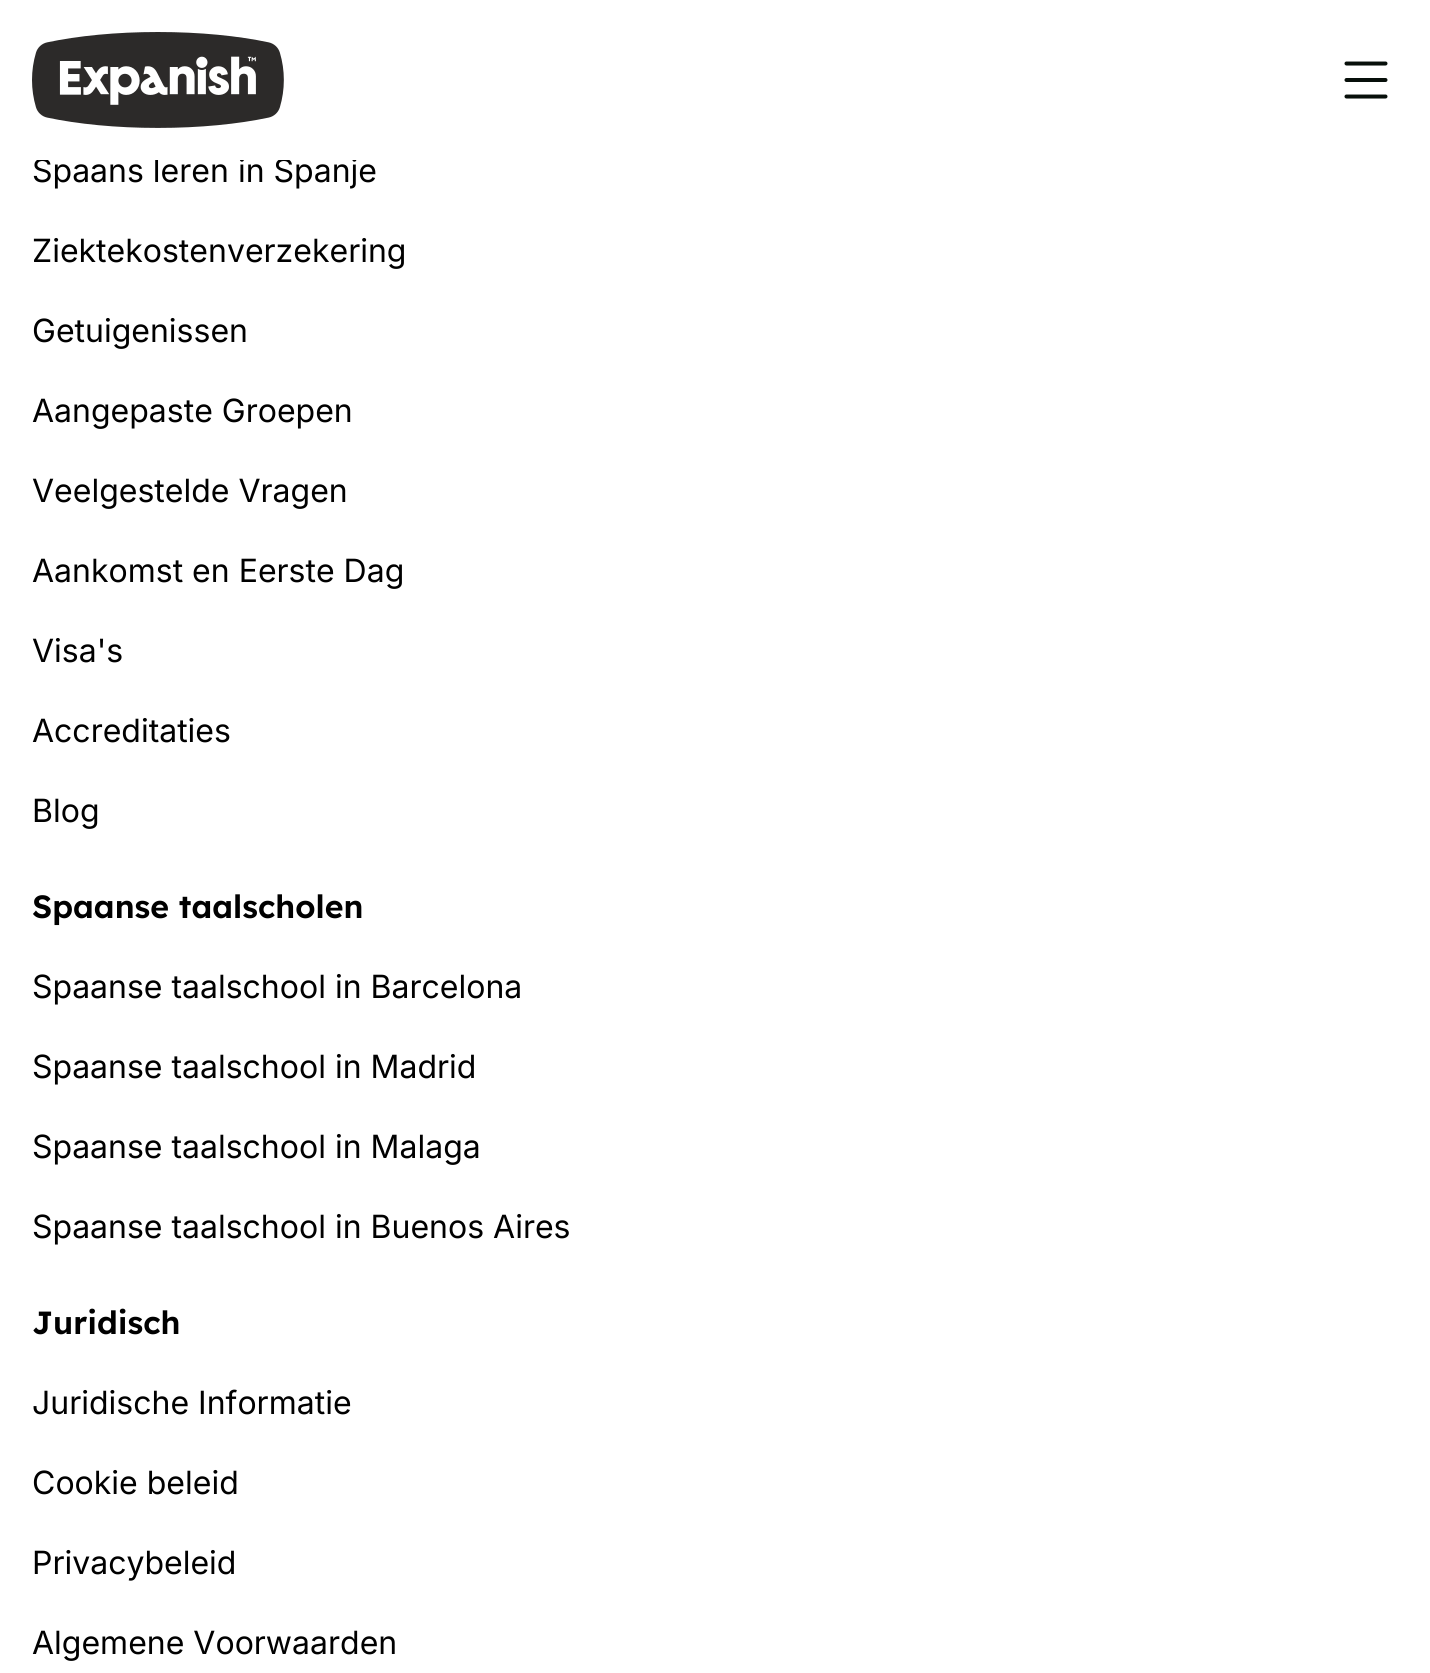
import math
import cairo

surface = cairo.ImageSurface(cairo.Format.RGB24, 1430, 1673)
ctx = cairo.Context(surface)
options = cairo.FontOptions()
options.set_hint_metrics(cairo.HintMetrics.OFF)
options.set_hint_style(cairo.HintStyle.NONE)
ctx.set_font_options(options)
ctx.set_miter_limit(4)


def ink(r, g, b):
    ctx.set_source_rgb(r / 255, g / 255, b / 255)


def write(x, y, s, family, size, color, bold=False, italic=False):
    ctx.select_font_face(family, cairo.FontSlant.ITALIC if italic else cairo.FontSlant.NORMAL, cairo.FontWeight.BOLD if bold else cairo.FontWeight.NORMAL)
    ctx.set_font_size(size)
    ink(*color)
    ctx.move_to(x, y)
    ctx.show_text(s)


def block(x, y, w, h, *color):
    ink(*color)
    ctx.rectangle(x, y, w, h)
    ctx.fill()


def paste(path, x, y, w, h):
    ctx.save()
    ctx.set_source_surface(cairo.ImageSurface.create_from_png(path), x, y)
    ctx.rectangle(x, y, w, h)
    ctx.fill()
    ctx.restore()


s1 = dict(family="Inter", size=32, color=(0, 0, 0))
s2 = dict(family="Lexend SemiBold", size=32, color=(0, 0, 0))

ink(255, 255, 255)
ctx.paint()
write(32, 182, "Spaans leren in Spanje", **s1)
block(37, 157, 320, 3, 255, 255, 255)
paste("pic1.png", 32, 32, 252, 96)
ctx.new_path()
ctx.move_to(1346.5, 63.5)
ctx.line_to(1385.5, 63.5)
ctx.move_to(1346.5, 96.5)
ctx.line_to(1385.5, 96.5)
ctx.move_to(1346.5, 80)
ctx.line_to(1385.5, 80)
ink(7, 15, 10)
ctx.set_line_width(4)
ctx.set_line_cap(cairo.LineCap.ROUND)
ctx.set_line_join(cairo.LineJoin.ROUND)
ctx.stroke()
write(32, 262, "Ziektekostenverzekering", **s1)
write(32, 342, "Getuigenissen", **s1)
write(32, 422, "Aangepaste Groepen", **s1)
write(32, 502, "Veelgestelde Vragen", **s1)
write(32, 582, "Aankomst en Eerste Dag", **s1)
write(32, 662, "Visa's", **s1)
write(32, 742, "Accreditaties", **s1)
write(32, 822, "Blog", **s1)
write(32, 918, "Spaanse taalscholen", **s2)
write(32, 998, "Spaanse taalschool in Barcelona", **s1)
write(32, 1078, "Spaanse taalschool in Madrid", **s1)
write(32, 1158, "Spaanse taalschool in Malaga", **s1)
write(32, 1238, "Spaanse taalschool in Buenos Aires", **s1)
write(32, 1334, "Juridisch", **s2)
write(32, 1414, "Juridische Informatie", **s1)
write(32, 1494, "Cookie beleid", **s1)
write(32, 1574, "Privacybeleid", **s1)
write(32, 1654, "Algemene Voorwaarden", **s1)
surface.write_to_png("screenshot.png")
